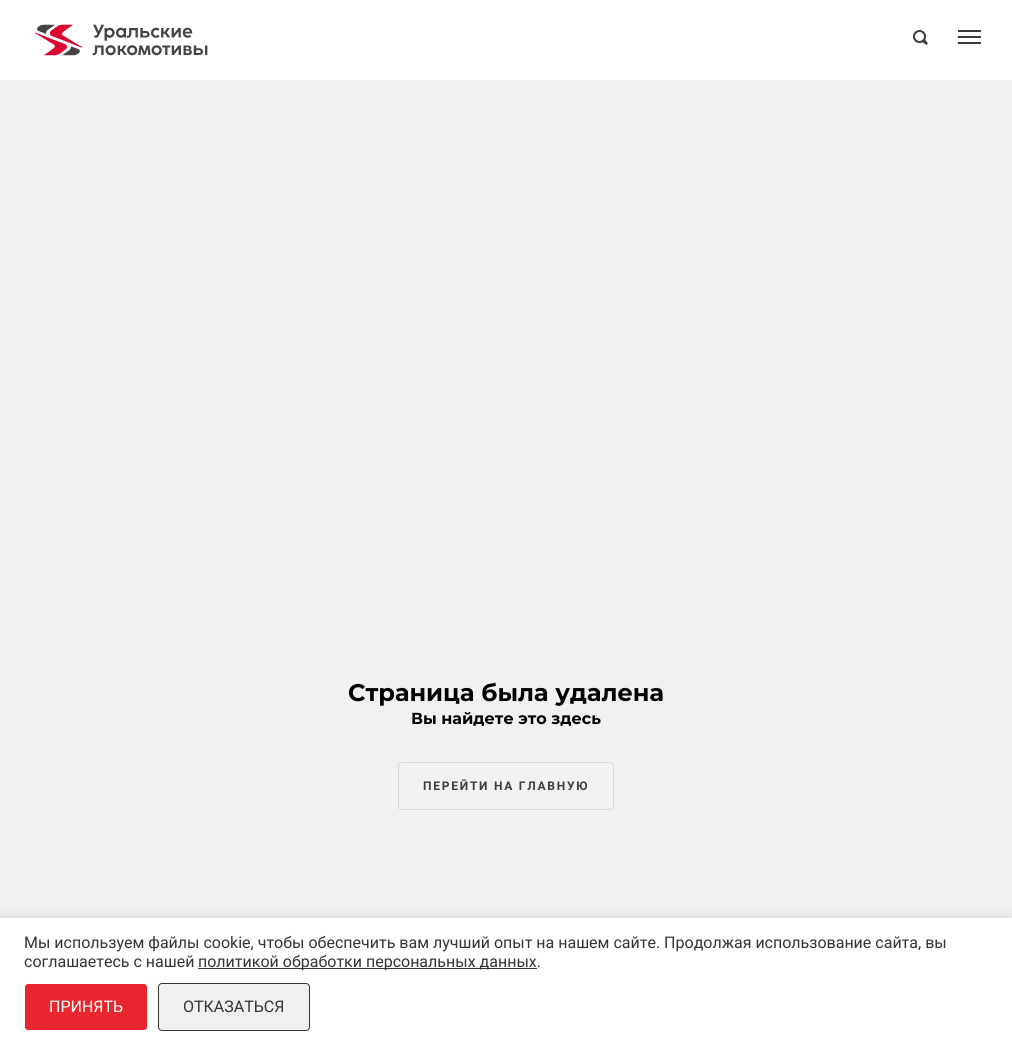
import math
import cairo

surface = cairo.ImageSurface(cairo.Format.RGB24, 1012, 1047)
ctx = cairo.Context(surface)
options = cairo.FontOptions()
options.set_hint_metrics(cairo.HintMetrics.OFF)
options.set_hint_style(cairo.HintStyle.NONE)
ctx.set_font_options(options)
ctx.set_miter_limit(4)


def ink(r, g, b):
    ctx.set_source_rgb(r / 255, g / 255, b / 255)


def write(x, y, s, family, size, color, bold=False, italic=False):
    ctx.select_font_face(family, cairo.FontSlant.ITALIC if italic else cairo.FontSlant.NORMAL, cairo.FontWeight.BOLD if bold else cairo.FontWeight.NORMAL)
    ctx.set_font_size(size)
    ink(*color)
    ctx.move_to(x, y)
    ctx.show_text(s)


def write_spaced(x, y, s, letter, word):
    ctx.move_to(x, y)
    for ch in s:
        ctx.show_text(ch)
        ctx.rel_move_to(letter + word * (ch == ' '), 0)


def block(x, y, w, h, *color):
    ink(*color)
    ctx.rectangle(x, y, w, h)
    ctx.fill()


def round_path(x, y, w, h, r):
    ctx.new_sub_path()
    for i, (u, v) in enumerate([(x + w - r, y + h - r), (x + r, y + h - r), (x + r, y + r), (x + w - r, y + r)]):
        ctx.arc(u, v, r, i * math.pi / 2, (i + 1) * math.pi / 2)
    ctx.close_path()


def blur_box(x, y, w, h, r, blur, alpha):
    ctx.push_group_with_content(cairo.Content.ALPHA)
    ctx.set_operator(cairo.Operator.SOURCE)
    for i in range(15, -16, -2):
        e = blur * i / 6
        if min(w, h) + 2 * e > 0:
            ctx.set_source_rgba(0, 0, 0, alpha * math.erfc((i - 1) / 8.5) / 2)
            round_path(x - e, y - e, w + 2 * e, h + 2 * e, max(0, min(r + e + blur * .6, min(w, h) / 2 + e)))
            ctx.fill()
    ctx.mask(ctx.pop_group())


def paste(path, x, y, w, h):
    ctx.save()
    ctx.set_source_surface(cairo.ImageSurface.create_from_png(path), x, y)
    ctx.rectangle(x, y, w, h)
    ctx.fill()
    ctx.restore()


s1 = dict(family="Montserrat", size=24, color=(0, 0, 0), bold=True)
s2 = dict(family="Montserrat", size=16, color=(0, 0, 0), bold=True)
s3 = dict(family="Roboto", size=16, color=(51, 51, 51))
s4 = dict(family="Roboto", size=16, color=(255, 255, 255))

ink(241, 241, 241)
ctx.paint()
block(0, 0, 1012, 80, 255, 255, 255)
paste("pic1.png", 34, 24, 174, 32)
paste("pic2.png", 913, 30, 15, 15)
block(958, 30, 23, 2, 60, 60, 60)
block(958, 36, 23, 2, 60, 60, 60)
block(958, 42, 23, 2, 60, 60, 60)
write(348, 701, "Страница была удалена", **s1)
write(411, 724, "Вы найдете это здесь", **s2)
round_path(398.5, 762.5, 215, 47, 3.5)
ink(208, 215, 221)
ctx.set_line_width(1)
ctx.stroke()
ctx.select_font_face("Roboto", cairo.FontSlant.NORMAL, cairo.FontWeight.BOLD)
ctx.set_font_size(12)
ink(60, 60, 60)
write_spaced(423, 790, "ПЕРЕЙТИ НА ГЛАВНУЮ", 1.75, 0)
ink(0, 0, 0)
blur_box(0, 916, 1012, 129, 0, 5, 0.1)
block(0, 918, 1012, 129, 255, 255, 255)
write(24, 948, "Мы используем файлы cookie, чтобы обеспечить вам лучший опыт на нашем сайте. Продолжая использование сайта, вы", **s3)
write(24, 967, "соглашаетесь с нашей", **s3)
block(198, 968, 339, 1, 51, 51, 51)
write(198, 967, "политикой обработки персональных данных.", **s3)
ink(231, 38, 45)
round_path(24.5, 983.5, 123, 47, 3.5)
ctx.fill_preserve()
ink(255, 255, 255)
ctx.stroke()
write(49, 1012, "ПРИНЯТЬ", **s4)
ink(240, 240, 240)
round_path(158.5, 983.5, 151, 47, 3.5)
ctx.fill_preserve()
ink(51, 51, 51)
ctx.stroke()
write(183, 1012, "ОТКАЗАТЬСЯ", **s3)
surface.write_to_png("screenshot.png")
